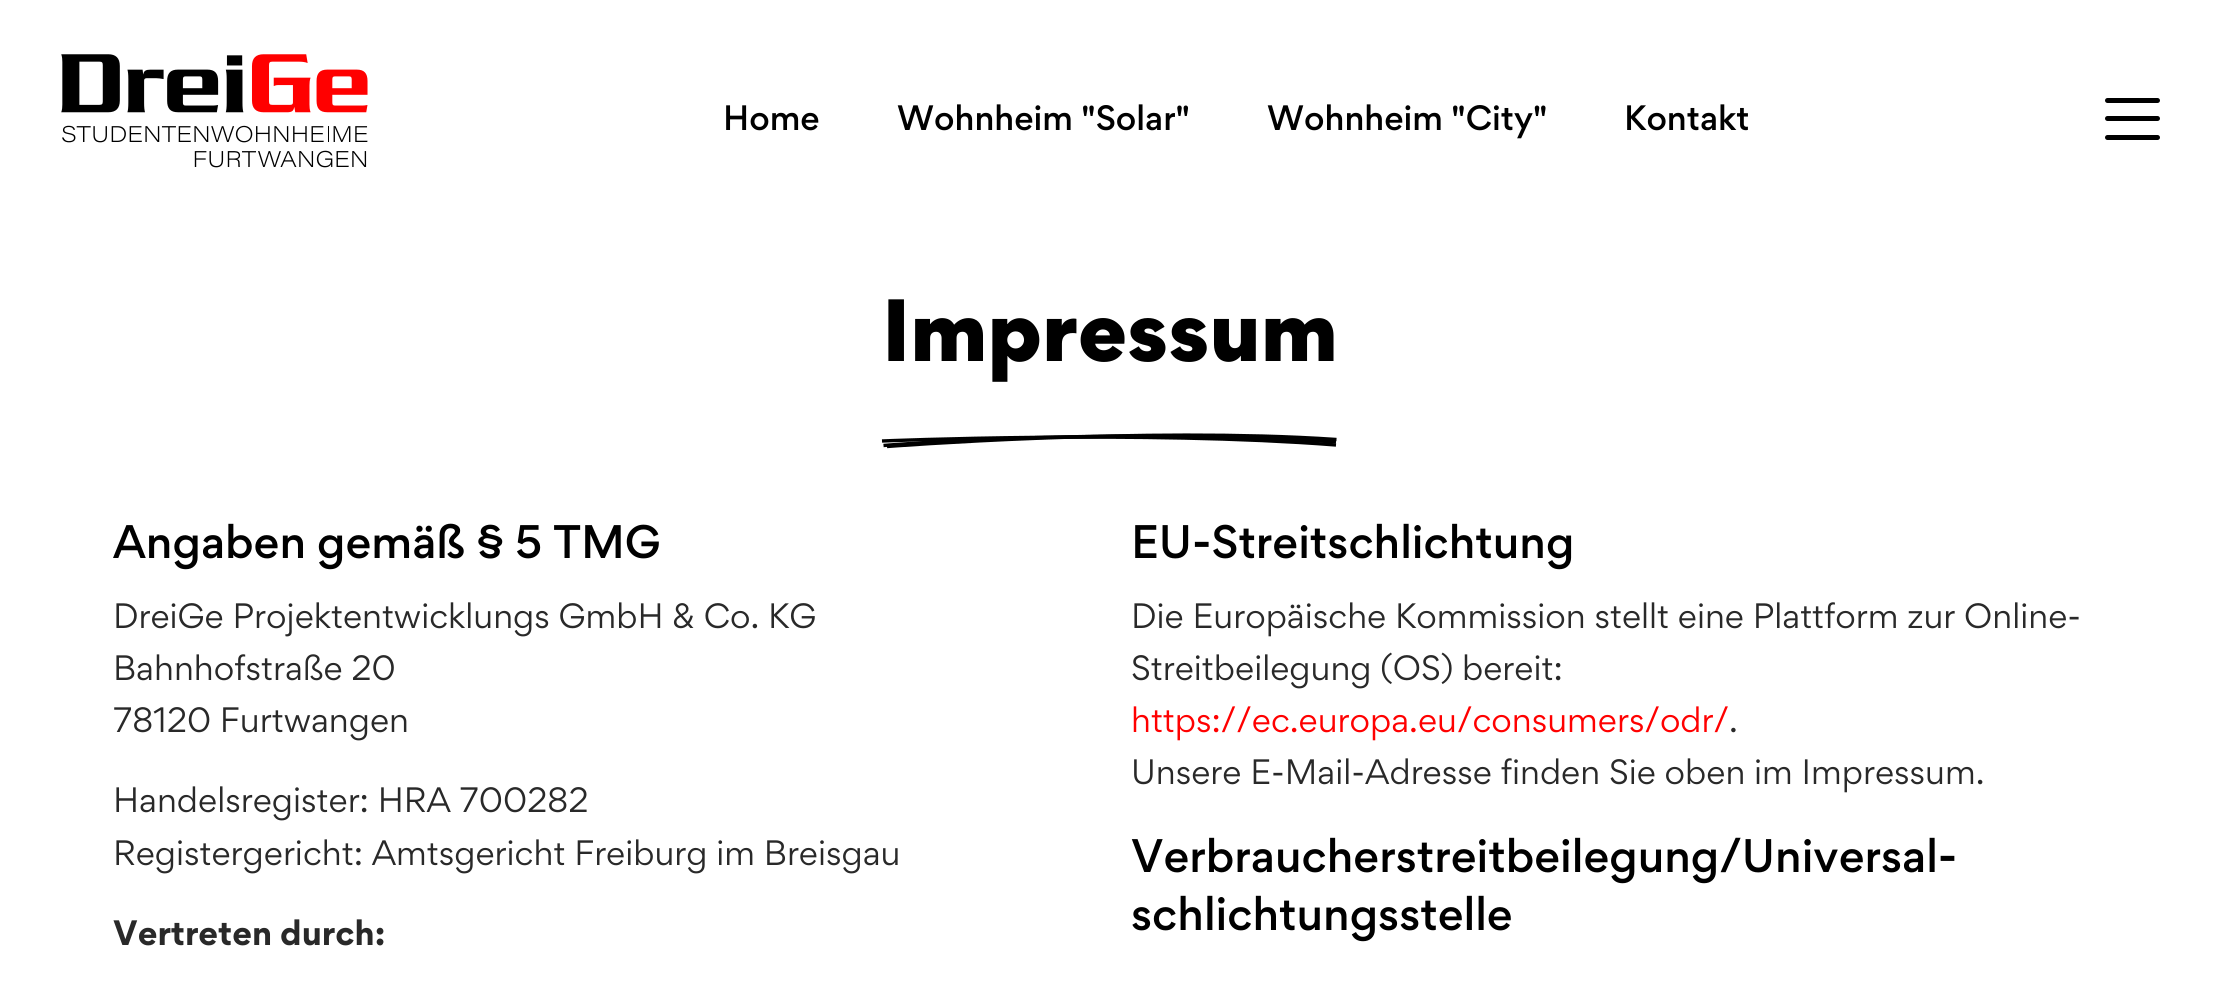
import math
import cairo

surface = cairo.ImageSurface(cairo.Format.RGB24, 2220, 985)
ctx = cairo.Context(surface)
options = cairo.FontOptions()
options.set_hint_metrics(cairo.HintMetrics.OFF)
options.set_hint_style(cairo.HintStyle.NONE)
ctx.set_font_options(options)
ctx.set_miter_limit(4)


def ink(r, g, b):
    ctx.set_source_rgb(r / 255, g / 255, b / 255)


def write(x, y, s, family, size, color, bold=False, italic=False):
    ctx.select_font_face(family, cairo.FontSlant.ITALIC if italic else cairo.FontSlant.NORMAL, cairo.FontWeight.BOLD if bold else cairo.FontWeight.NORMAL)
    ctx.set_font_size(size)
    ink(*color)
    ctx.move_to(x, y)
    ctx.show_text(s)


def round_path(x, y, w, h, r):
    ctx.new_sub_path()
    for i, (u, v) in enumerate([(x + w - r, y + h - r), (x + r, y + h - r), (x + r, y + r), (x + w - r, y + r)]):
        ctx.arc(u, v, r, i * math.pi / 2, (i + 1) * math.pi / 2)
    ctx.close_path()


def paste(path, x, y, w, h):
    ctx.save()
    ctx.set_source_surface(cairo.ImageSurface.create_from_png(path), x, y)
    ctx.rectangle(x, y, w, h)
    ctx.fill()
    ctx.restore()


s1 = dict(family="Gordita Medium", size=31.5, color=(0, 0, 0))
s2 = dict(family="Gordita Black", size=78.75, color=(0, 0, 0))
s3 = dict(family="Gordita Medium", size=42, color=(0, 0, 0))
s4 = dict(family="Gordita", size=31.5, color=(41, 41, 41))
s5 = dict(family="Gordita", size=31.5, color=(41, 41, 41), bold=True)
s6 = dict(family="Gordita", size=31.5, color=(255, 0, 0))

ink(255, 255, 255)
ctx.paint()
paste("pic1.png", 61, 54, 307, 114)
write(723, 130, "Home", **s1)
write(897, 130, "Wohnheim \"Solar\"", **s1)
write(1267, 130, "Wohnheim \"City\"", **s1)
write(1624, 130, "Kontakt", **s1)
round_path(2105, 98, 55, 5, 2.5)
ctx.fill()
round_path(2105, 116, 55, 5, 2.5)
ctx.fill()
round_path(2105, 135, 55, 5, 2.5)
ctx.fill()
write(882, 361, "Impressum", **s2)
ctx.new_path()
ctx.move_to(882, 441)
ctx.curve_to(882, 441, 1144, 430, 1336, 445)
ctx.set_line_width(3.4)
ctx.stroke()
ctx.new_path()
ctx.move_to(883.5, 445.5)
ctx.curve_to(883.5, 445.5, 1093.5, 427, 1336, 442)
ctx.stroke()
ctx.new_path()
ctx.move_to(887, 446.5)
ctx.curve_to(887, 446.5, 1146.5, 426.5, 1336.5, 439.5)
ctx.stroke()
write(113, 558, "Angaben gemäß § 5 TMG", **s3)
write(113, 628, "DreiGe Projektentwicklungs GmbH & Co. KG", **s4)
write(113, 680, "Bahnhofstraße 20", **s4)
write(113, 732, "78120 Furtwangen", **s4)
write(113, 812, "Handelsregister: HRA 700282", **s4)
write(113, 865, "Registergericht: Amtsgericht Freiburg im Breisgau", **s4)
write(113, 945, "Vertreten durch:", **s5)
write(1131, 558, "EU-Streitschlichtung", **s3)
write(1131, 628, "Die Europäische Kommission stellt eine Plattform zur Online-", **s4)
write(1131, 680, "Streitbeilegung (OS) bereit:", **s4)
write(1131, 732, "https://ec.europa.eu/consumers/odr/", **s6)
write(1729, 732, ".", **s4)
write(1131, 784, "Unsere E-Mail-Adresse finden Sie oben im Impressum.", **s4)
write(1131, 872, "Verbraucherstreitbeilegung/Universal-", **s3)
write(1131, 930, "schlichtungsstelle", **s3)
surface.write_to_png("screenshot.png")
